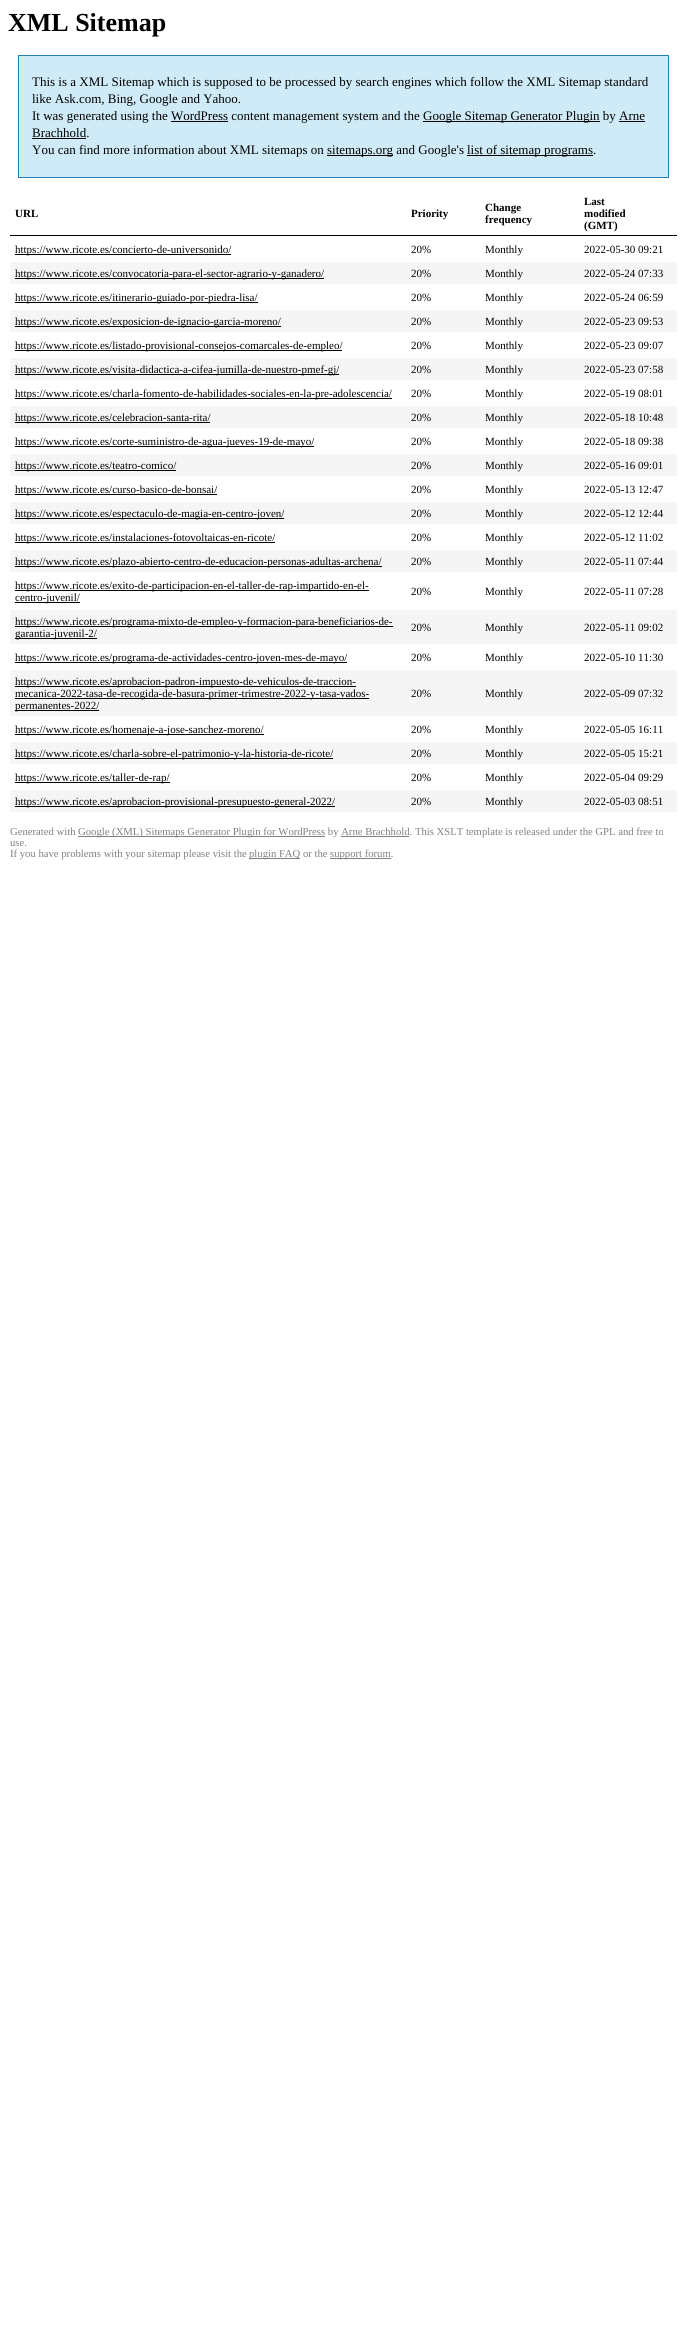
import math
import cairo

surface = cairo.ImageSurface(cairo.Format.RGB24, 687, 2330)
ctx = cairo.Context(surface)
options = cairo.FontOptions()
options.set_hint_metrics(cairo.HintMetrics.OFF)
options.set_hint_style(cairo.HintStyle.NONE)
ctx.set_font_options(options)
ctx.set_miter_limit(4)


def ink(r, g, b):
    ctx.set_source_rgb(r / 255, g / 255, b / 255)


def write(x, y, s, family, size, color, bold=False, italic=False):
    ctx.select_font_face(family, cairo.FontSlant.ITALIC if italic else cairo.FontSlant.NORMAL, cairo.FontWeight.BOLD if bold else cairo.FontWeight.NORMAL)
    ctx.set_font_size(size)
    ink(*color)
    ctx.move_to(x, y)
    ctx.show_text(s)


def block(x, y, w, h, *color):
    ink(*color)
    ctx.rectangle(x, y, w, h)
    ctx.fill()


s1 = dict(family="Liberation Serif", size=26, color=(0, 0, 0), bold=True)
s2 = dict(family="Liberation Serif", size=13, color=(0, 0, 0))
s3 = dict(family="Liberation Serif", size=11, color=(0, 0, 0), bold=True)
s4 = dict(family="Liberation Serif", size=11, color=(0, 0, 0))
s5 = dict(family="Liberation Serif", size=10.67, color=(128, 128, 128))

ink(255, 255, 255)
ctx.paint()
write(8, 31, "XML Sitemap", **s1)
ink(207, 235, 247)
ctx.rectangle(18.5, 55.5, 650, 122)
ctx.fill_preserve()
ink(37, 128, 178)
ctx.set_line_width(1)
ctx.stroke()
write(32, 86, "This is a XML Sitemap which is supposed to be processed by search engines which follow the XML Sitemap standard", **s2)
write(32, 103, "like Ask.com, Bing, Google and Yahoo.", **s2)
write(32, 120, "It was generated using the WordPress content management system and the", **s2)
block(423, 121, 177, 1, 0, 0, 0)
write(423, 120, "Google Sitemap Generator Plugin by Arne", **s2)
block(171, 121, 57, 1, 0, 0, 0)
write(32, 137, "Brachhold.", **s2)
block(619, 121, 26, 1, 0, 0, 0)
block(32, 138, 54, 1, 0, 0, 0)
write(32, 154, "You can find more information about XML sitemaps on", **s2)
block(327, 155, 66, 1, 0, 0, 0)
write(327, 154, "sitemaps.org and Google's", **s2)
block(467, 155, 126, 1, 0, 0, 0)
write(467, 154, "list of sitemap programs.", **s2)
block(10, 235, 667, 1, 0, 0, 0)
write(15, 217, "URL", **s3)
write(411, 217, "Priority", **s3)
write(485, 211, "Change", **s3)
write(485, 223, "frequency", **s3)
write(584, 205, "Last", **s3)
write(584, 217, "modified", **s3)
write(584, 229, "(GMT)", **s3)
block(15, 254, 216, 1, 0, 0, 0)
write(15, 253, "https://www.ricote.es/concierto-de-universonido/", **s4)
write(411, 253, "20%", **s4)
write(485, 253, "Monthly", **s4)
write(584, 253, "2022-05-30 09:21", **s4)
block(10, 262, 667, 22, 245, 245, 245)
block(15, 278, 309, 1, 0, 0, 0)
write(15, 277, "https://www.ricote.es/convocatoria-para-el-sector-agrario-y-ganadero/", **s4)
write(411, 277, "20%", **s4)
write(485, 277, "Monthly", **s4)
write(584, 277, "2022-05-24 07:33", **s4)
block(15, 302, 243, 1, 0, 0, 0)
write(15, 301, "https://www.ricote.es/itinerario-guiado-por-piedra-lisa/", **s4)
write(411, 301, "20%", **s4)
write(485, 301, "Monthly", **s4)
write(584, 301, "2022-05-24 06:59", **s4)
block(10, 310, 667, 22, 245, 245, 245)
block(15, 326, 266, 1, 0, 0, 0)
write(15, 325, "https://www.ricote.es/exposicion-de-ignacio-garcia-moreno/", **s4)
write(411, 325, "20%", **s4)
write(485, 325, "Monthly", **s4)
write(584, 325, "2022-05-23 09:53", **s4)
block(15, 350, 327, 1, 0, 0, 0)
write(15, 349, "https://www.ricote.es/listado-provisional-consejos-comarcales-de-empleo/", **s4)
write(411, 349, "20%", **s4)
write(485, 349, "Monthly", **s4)
write(584, 349, "2022-05-23 09:07", **s4)
block(10, 358, 667, 22, 245, 245, 245)
block(15, 374, 324, 1, 0, 0, 0)
write(15, 373, "https://www.ricote.es/visita-didactica-a-cifea-jumilla-de-nuestro-pmef-gj/", **s4)
write(411, 373, "20%", **s4)
write(485, 373, "Monthly", **s4)
write(584, 373, "2022-05-23 07:58", **s4)
block(15, 398, 377, 1, 0, 0, 0)
write(15, 397, "https://www.ricote.es/charla-fomento-de-habilidades-sociales-en-la-pre-adolescencia/", **s4)
write(411, 397, "20%", **s4)
write(485, 397, "Monthly", **s4)
write(584, 397, "2022-05-19 08:01", **s4)
block(10, 406, 667, 22, 245, 245, 245)
block(15, 422, 195, 1, 0, 0, 0)
write(15, 421, "https://www.ricote.es/celebracion-santa-rita/", **s4)
write(411, 421, "20%", **s4)
write(485, 421, "Monthly", **s4)
write(584, 421, "2022-05-18 10:48", **s4)
block(15, 446, 299, 1, 0, 0, 0)
write(15, 445, "https://www.ricote.es/corte-suministro-de-agua-jueves-19-de-mayo/", **s4)
write(411, 445, "20%", **s4)
write(485, 445, "Monthly", **s4)
write(584, 445, "2022-05-18 09:38", **s4)
block(10, 454, 667, 22, 245, 245, 245)
block(15, 470, 161, 1, 0, 0, 0)
write(15, 469, "https://www.ricote.es/teatro-comico/", **s4)
write(411, 469, "20%", **s4)
write(485, 469, "Monthly", **s4)
write(584, 469, "2022-05-16 09:01", **s4)
block(15, 494, 202, 1, 0, 0, 0)
write(15, 493, "https://www.ricote.es/curso-basico-de-bonsai/", **s4)
write(411, 493, "20%", **s4)
write(485, 493, "Monthly", **s4)
write(584, 493, "2022-05-13 12:47", **s4)
block(10, 502, 667, 22, 245, 245, 245)
block(15, 518, 269, 1, 0, 0, 0)
write(15, 517, "https://www.ricote.es/espectaculo-de-magia-en-centro-joven/", **s4)
write(411, 517, "20%", **s4)
write(485, 517, "Monthly", **s4)
write(584, 517, "2022-05-12 12:44", **s4)
block(15, 542, 260, 1, 0, 0, 0)
write(15, 541, "https://www.ricote.es/instalaciones-fotovoltaicas-en-ricote/", **s4)
write(411, 541, "20%", **s4)
write(485, 541, "Monthly", **s4)
write(584, 541, "2022-05-12 11:02", **s4)
block(10, 550, 667, 22, 245, 245, 245)
block(15, 566, 367, 1, 0, 0, 0)
write(15, 565, "https://www.ricote.es/plazo-abierto-centro-de-educacion-personas-adultas-archena/", **s4)
write(411, 565, "20%", **s4)
write(485, 565, "Monthly", **s4)
write(584, 565, "2022-05-11 07:44", **s4)
block(15, 590, 354, 1, 0, 0, 0)
write(15, 589, "https://www.ricote.es/exito-de-participacion-en-el-taller-de-rap-impartido-en-el-", **s4)
block(15, 602, 65, 1, 0, 0, 0)
write(15, 601, "centro-juvenil/", **s4)
write(411, 595, "20%", **s4)
write(485, 595, "Monthly", **s4)
write(584, 595, "2022-05-11 07:28", **s4)
block(10, 610, 667, 34, 245, 245, 245)
block(15, 626, 378, 1, 0, 0, 0)
write(15, 625, "https://www.ricote.es/programa-mixto-de-empleo-y-formacion-para-beneficiarios-de-", **s4)
block(15, 638, 82, 1, 0, 0, 0)
write(15, 637, "garantia-juvenil-2/", **s4)
write(411, 631, "20%", **s4)
write(485, 631, "Monthly", **s4)
write(584, 631, "2022-05-11 09:02", **s4)
block(15, 662, 332, 1, 0, 0, 0)
write(15, 661, "https://www.ricote.es/programa-de-actividades-centro-joven-mes-de-mayo/", **s4)
write(411, 661, "20%", **s4)
write(485, 661, "Monthly", **s4)
write(584, 661, "2022-05-10 11:30", **s4)
block(10, 670, 667, 46, 245, 245, 245)
block(15, 686, 341, 1, 0, 0, 0)
write(15, 685, "https://www.ricote.es/aprobacion-padron-impuesto-de-vehiculos-de-traccion-", **s4)
block(15, 698, 354, 1, 0, 0, 0)
write(15, 697, "mecanica-2022-tasa-de-recogida-de-basura-primer-trimestre-2022-y-tasa-vados-", **s4)
block(15, 710, 84, 1, 0, 0, 0)
write(15, 709, "permanentes-2022/", **s4)
write(411, 697, "20%", **s4)
write(485, 697, "Monthly", **s4)
write(584, 697, "2022-05-09 07:32", **s4)
block(15, 734, 249, 1, 0, 0, 0)
write(15, 733, "https://www.ricote.es/homenaje-a-jose-sanchez-moreno/", **s4)
write(411, 733, "20%", **s4)
write(485, 733, "Monthly", **s4)
write(584, 733, "2022-05-05 16:11", **s4)
block(10, 742, 667, 22, 245, 245, 245)
block(15, 758, 318, 1, 0, 0, 0)
write(15, 757, "https://www.ricote.es/charla-sobre-el-patrimonio-y-la-historia-de-ricote/", **s4)
write(411, 757, "20%", **s4)
write(485, 757, "Monthly", **s4)
write(584, 757, "2022-05-05 15:21", **s4)
block(15, 782, 155, 1, 0, 0, 0)
write(15, 781, "https://www.ricote.es/taller-de-rap/", **s4)
write(411, 781, "20%", **s4)
write(485, 781, "Monthly", **s4)
write(584, 781, "2022-05-04 09:29", **s4)
block(10, 790, 667, 22, 245, 245, 245)
block(15, 806, 320, 1, 0, 0, 0)
write(15, 805, "https://www.ricote.es/aprobacion-provisional-presupuesto-general-2022/", **s4)
write(411, 805, "20%", **s4)
write(485, 805, "Monthly", **s4)
write(584, 805, "2022-05-03 08:51", **s4)
write(10, 835, "Generated with", **s5)
block(78, 836, 247, 1, 128, 128, 128)
write(78, 835, "Google (XML) Sitemaps Generator Plugin for WordPress by Arne Brachhold. This XSLT template is released under the GPL and free to", **s5)
block(341, 836, 68, 1, 128, 128, 128)
write(10, 846, "use.", **s5)
write(10, 857, "If you have problems with your sitemap please visit the", **s5)
block(249, 858, 51, 1, 128, 128, 128)
write(249, 857, "plugin FAQ or the", **s5)
block(330, 858, 61, 1, 128, 128, 128)
write(330, 857, "support forum.", **s5)
surface.write_to_png("screenshot.png")
